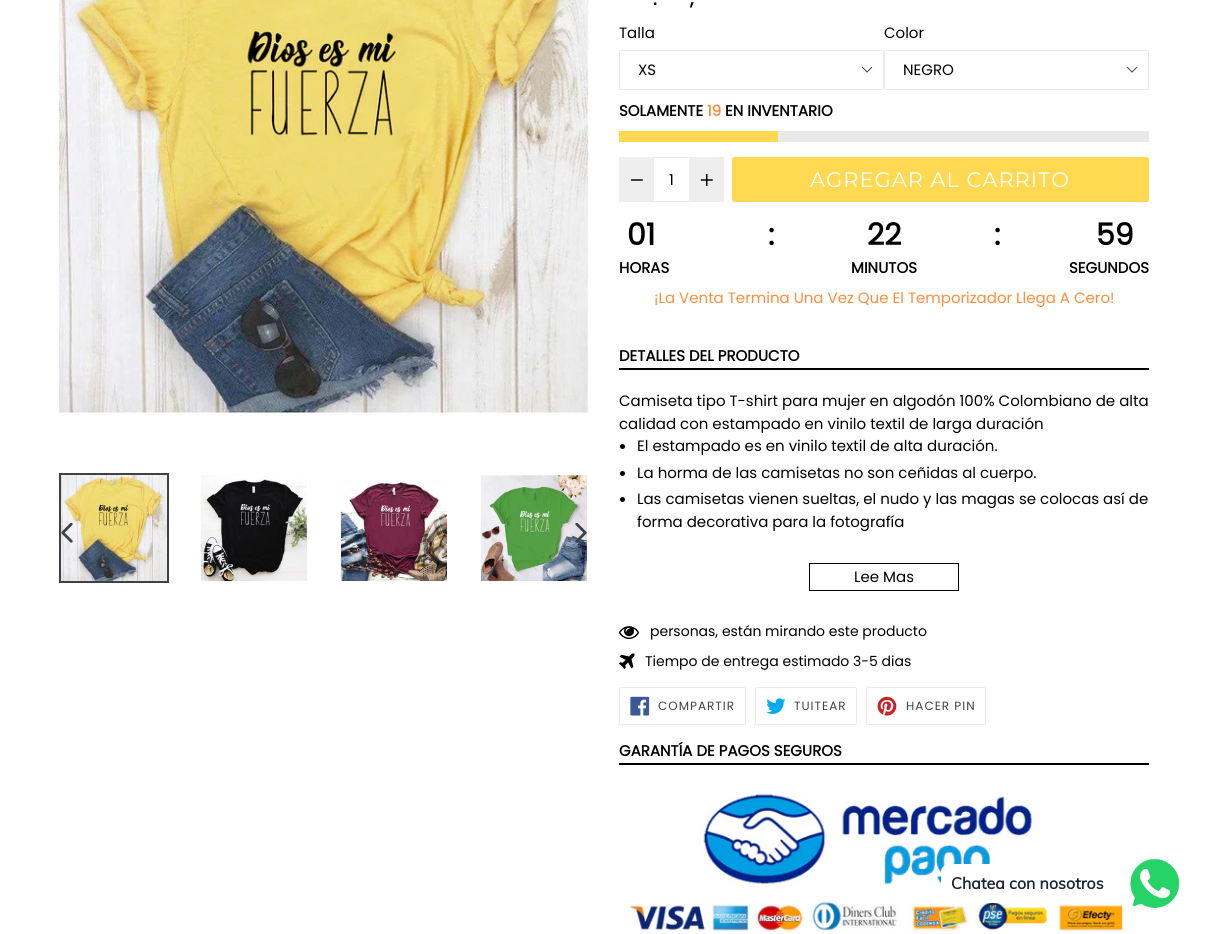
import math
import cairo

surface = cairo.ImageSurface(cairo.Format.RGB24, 1208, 934)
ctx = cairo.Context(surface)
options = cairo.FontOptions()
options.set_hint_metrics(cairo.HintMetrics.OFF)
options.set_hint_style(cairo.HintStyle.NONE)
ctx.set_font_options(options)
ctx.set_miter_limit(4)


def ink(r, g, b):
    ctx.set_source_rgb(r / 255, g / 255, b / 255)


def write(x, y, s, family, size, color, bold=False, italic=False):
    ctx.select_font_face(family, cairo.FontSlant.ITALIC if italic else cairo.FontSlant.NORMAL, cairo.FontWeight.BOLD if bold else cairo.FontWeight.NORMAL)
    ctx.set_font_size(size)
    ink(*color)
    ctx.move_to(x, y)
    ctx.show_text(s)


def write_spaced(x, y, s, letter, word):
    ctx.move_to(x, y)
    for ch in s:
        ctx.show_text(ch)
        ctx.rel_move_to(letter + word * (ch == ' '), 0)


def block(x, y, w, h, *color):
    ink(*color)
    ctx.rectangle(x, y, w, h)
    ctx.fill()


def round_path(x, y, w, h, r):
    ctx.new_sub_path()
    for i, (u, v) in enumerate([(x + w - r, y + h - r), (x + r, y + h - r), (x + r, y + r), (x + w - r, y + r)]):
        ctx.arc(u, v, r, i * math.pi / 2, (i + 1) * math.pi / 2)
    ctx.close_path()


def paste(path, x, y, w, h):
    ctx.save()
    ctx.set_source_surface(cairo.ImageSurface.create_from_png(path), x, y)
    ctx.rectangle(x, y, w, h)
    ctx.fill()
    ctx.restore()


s1 = dict(family="Poppins", size=18, color=(0, 0, 0), bold=True)
s2 = dict(family="Poppins", size=15, color=(0, 0, 0))
s3 = dict(family="Poppins", size=15, color=(0, 0, 0), bold=True)
s4 = dict(family="Poppins", size=15, color=(255, 142, 59), bold=True)
s5 = dict(family="Poppins", size=30, color=(0, 0, 0), bold=True)
s6 = dict(family="Poppins", size=15, color=(255, 142, 59))
s7 = dict(family="Poppins", size=14, color=(0, 0, 0))
s8 = dict(family="Muli", size=16, color=(30, 36, 51), bold=True)

ink(255, 255, 255)
ctx.paint()
paste("pic1.png", 59, 0, 530, 413)
ctx.rectangle(60, 474, 108, 108)
ink(61, 66, 70)
ctx.stroke()
paste("pic2.png", 61, 475, 106, 106)
paste("pic3.png", 201, 475, 106, 106)
paste("pic4.png", 341, 480, 106, 101)
paste("pic5.png", 481, 475, 106, 106)
paste("pic6.png", 61, 523, 12, 20)
paste("pic7.png", 575, 523, 12, 20)
write(653, 5, ".", **s1)
write(690, 5, ",", **s1)
write(619, 38, "Talla", **s2)
paste("pic8.png", 861, 66, 12, 7)
round_path(619.5, 50.5, 264, 39, 1.5)
ink(235, 235, 235)
ctx.set_line_width(1)
ctx.stroke()
write(638, 75, "XS", **s2)
write(884, 38, "Color", **s2)
paste("pic8.png", 1126, 66, 12, 7)
round_path(884.5, 50.5, 264, 39, 1.5)
ink(235, 235, 235)
ctx.stroke()
write(903, 75, "NEGRO", **s2)
write(619, 116, "SOLAMENTE", **s3)
write(707, 116, "19", **s4)
write(725, 116, "EN INVENTARIO", **s3)
block(778, 131, 371, 11, 234, 233, 233)
block(619, 131, 159, 11, 255, 217, 82)
block(619, 157, 35, 45, 238, 238, 238)
paste("pic9.png", 630, 179, 13, 2)
block(654, 157, 35, 1, 235, 235, 235)
block(654, 201, 35, 1, 235, 235, 235)
write(669, 185, "1", **s2)
block(689, 157, 35, 45, 238, 238, 238)
paste("pic10.png", 700, 173, 13, 14)
ink(255, 217, 82)
round_path(732, 157, 417, 45, 2)
ctx.fill()
ctx.select_font_face("Montserrat Thin")
ctx.set_font_size(21)
ink(255, 255, 255)
write_spaced(810, 187, "AGREGAR AL CARRITO", 1, 0)
write(627, 245, "01", **s5)
write(768, 245, ":", **s5)
write(867, 245, "22", **s5)
write(994, 245, ":", **s5)
write(1096, 245, "59", **s5)
write(619, 273, "HORAS", **s3)
write(851, 273, "MINUTOS", **s3)
write(1069, 273, "SEGUNDOS", **s3)
write(654, 303, "¡La Venta Termina Una Vez Que El Temporizador Llega A Cero!", **s6)
block(619, 368, 530, 2, 0, 0, 0)
write(619, 361, "DETALLES DEL PRODUCTO", **s3)
write(619, 406, "Camiseta tipo T-shirt para mujer en algodón 100% Colombiano de alta", **s2)
write(619, 429, "calidad con estampado en vinilo textil de larga duración", **s2)
ctx.new_path()
ctx.arc(622.5, 446.5, 2.5, 0, 2 * math.pi)
ctx.fill()
write(637, 451, "El estampado es en vinilo textil de alta duración.", **s2)
ctx.new_path()
ctx.arc(622.5, 473.5, 2.5, 0, 2 * math.pi)
ctx.fill()
write(637, 478, "La horma de las camisetas no son ceñidas al cuerpo.", **s2)
ctx.new_path()
ctx.arc(622.5, 499.5, 2.5, 0, 2 * math.pi)
ctx.fill()
write(637, 504, "Las camisetas vienen sueltas, el nudo y las magas se colocas así de", **s2)
write(637, 527, "forma decorativa para la fotografía", **s2)
ctx.rectangle(809.5, 563.5, 149, 27)
ctx.stroke()
write(854, 582, "Lee Mas", **s2)
paste("pic11.png", 619, 626, 20, 13)
write(650, 636, "personas, están mirando este producto", **s7)
paste("pic12.png", 619, 653, 16, 16)
write(645, 666, "Tiempo de entrega estimado 3-5 dias", **s7)
round_path(619.5, 687.5, 126, 37, 1.5)
ink(235, 235, 235)
ctx.stroke()
paste("pic13.png", 630, 696, 20, 20)
ctx.set_font_size(12)
ink(61, 66, 70)
write_spaced(658, 710, "COMPARTIR", 1, 0)
round_path(755.5, 687.5, 101, 37, 1.5)
ink(235, 235, 235)
ctx.stroke()
paste("pic14.png", 766, 698, 20, 16)
ink(61, 66, 70)
write_spaced(794, 710, "TUITEAR", 1, 0)
round_path(866.5, 687.5, 119, 37, 1.5)
ink(235, 235, 235)
ctx.stroke()
paste("pic15.png", 877, 696, 20, 20)
ink(61, 66, 70)
write_spaced(906, 710, "HACER PIN", 1, 0)
block(619, 763, 530, 2, 0, 0, 0)
write(619, 756, "GARANTÍA DE PAGOS SEGUROS", **s3)
paste("pic16.png", 628, 792, 497, 140)
paste("pic17.png", 1130, 858, 50, 50)
ink(255, 255, 255)
round_path(941, 864, 173, 39, 8)
ctx.fill()
write(951, 889, "Chatea con nosotros", **s8)
surface.write_to_png("screenshot.png")
